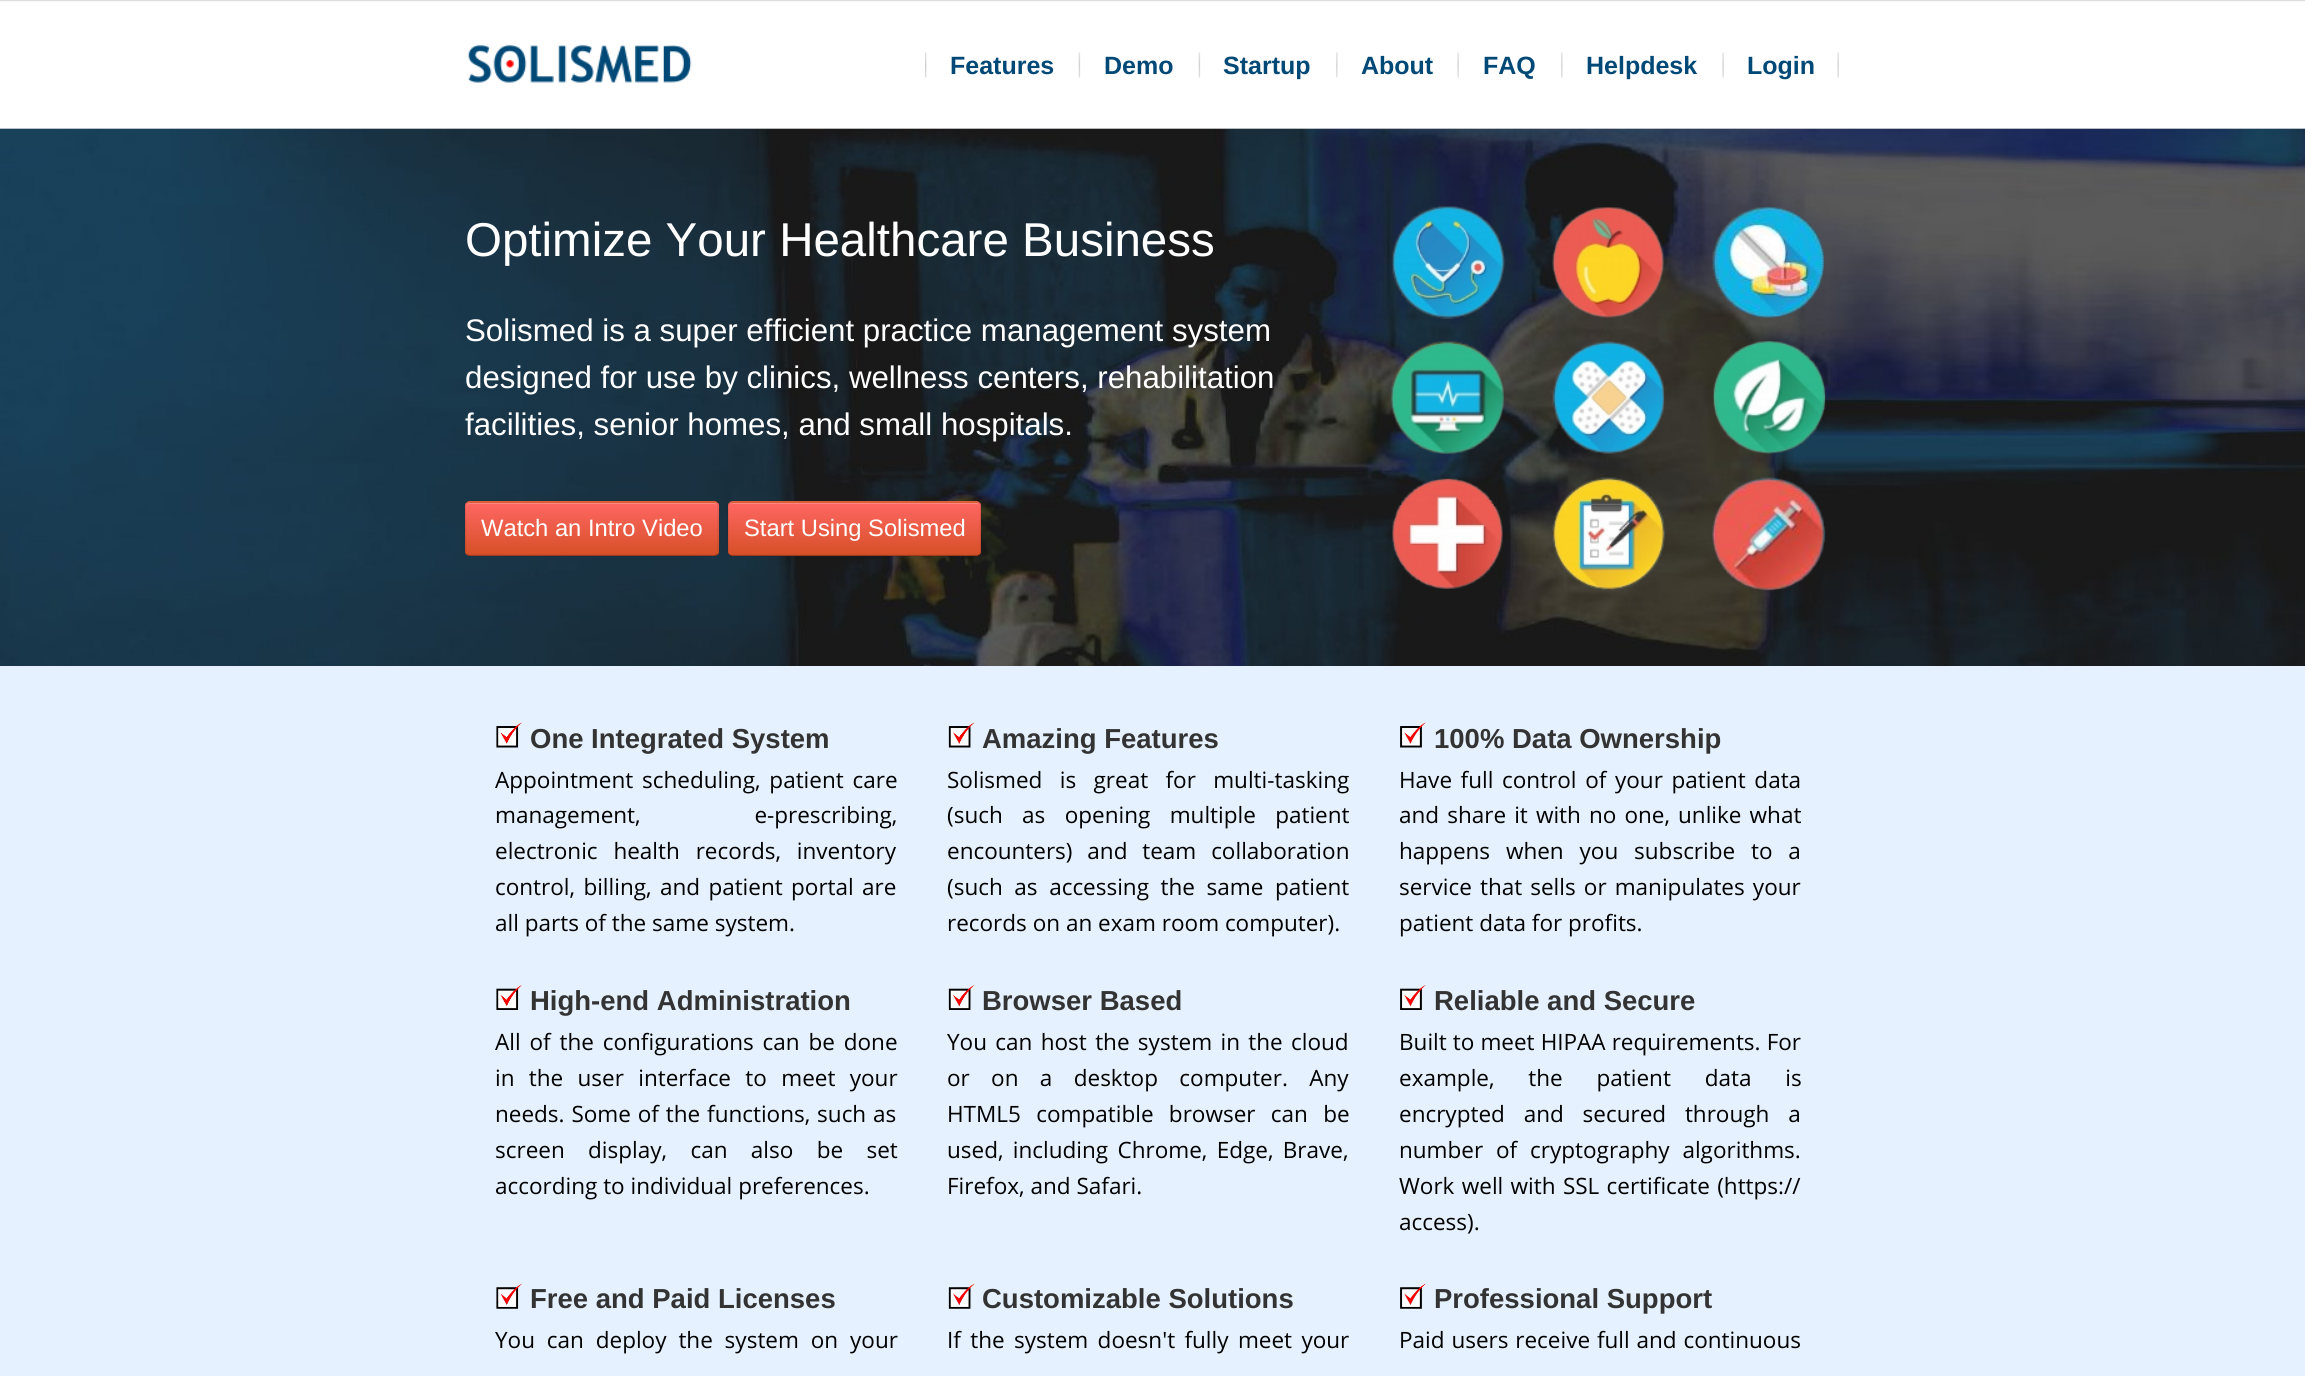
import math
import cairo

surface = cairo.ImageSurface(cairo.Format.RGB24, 2305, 1376)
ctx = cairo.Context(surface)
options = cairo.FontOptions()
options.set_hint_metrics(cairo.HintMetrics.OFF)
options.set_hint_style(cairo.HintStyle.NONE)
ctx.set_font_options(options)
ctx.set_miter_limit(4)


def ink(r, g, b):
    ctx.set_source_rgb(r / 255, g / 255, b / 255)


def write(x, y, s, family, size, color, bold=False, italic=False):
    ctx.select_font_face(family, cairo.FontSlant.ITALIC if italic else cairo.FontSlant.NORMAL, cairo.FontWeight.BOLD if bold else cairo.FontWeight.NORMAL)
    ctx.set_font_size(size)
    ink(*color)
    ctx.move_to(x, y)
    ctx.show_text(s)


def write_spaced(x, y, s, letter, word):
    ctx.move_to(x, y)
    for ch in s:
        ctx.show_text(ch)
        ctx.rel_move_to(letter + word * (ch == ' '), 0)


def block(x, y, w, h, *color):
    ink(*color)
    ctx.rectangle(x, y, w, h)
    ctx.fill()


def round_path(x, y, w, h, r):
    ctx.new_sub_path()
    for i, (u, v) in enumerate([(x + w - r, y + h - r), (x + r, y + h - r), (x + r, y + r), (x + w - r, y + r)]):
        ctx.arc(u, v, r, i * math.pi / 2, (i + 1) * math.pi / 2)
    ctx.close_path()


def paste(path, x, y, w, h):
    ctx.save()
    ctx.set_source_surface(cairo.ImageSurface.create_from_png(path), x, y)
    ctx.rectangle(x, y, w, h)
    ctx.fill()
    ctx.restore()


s1 = dict(family="Liberation Sans", size=25, color=(0, 73, 119), bold=True)
s2 = dict(family="Liberation Sans", size=47.5, color=(255, 255, 255))
s3 = dict(family="Liberation Sans", size=31.25, color=(255, 255, 255))
s4 = dict(family="Liberation Sans", size=23.75, color=(255, 255, 255))
s5 = dict(family="Liberation Sans", size=27.5, color=(51, 51, 51), bold=True)
s6 = dict(family="Open Sans", size=22.5, color=(0, 0, 0))

ink(255, 255, 255)
ctx.paint()
block(0, 0, 2305, 1, 221, 221, 221)
block(0, 1, 2305, 1, 248, 247, 247)
block(0, 128, 2305, 1, 237, 236, 236)
paste("pic1.png", 468, 44, 224, 39)
paste("pic2.png", 1837, 52, 2, 26)
paste("pic3.png", 925, 52, 2, 26)
write(950, 74, "Features", **s1)
paste("pic4.png", 1078, 52, 3, 26)
write(1104, 74, "Demo", **s1)
paste("pic4.png", 1198, 52, 3, 26)
write(1223, 74, "Startup", **s1)
paste("pic5.png", 1336, 52, 2, 26)
write(1361, 74, "About", **s1)
paste("pic2.png", 1457, 52, 2, 26)
write(1483, 74, "FAQ", **s1)
paste("pic5.png", 1561, 52, 2, 26)
write(1586, 74, "Helpdesk", **s1)
paste("pic2.png", 1722, 52, 2, 26)
write(1747, 74, "Login", **s1)
paste("pic6.png", 0, 128, 2305, 538)
paste("pic7.png", 1391, 206, 435, 385)
write(465, 256, "Optimize Your Healthcare Business", **s2)
write(465, 341, "Solismed is a super efficient practice management system", **s3)
write(465, 388, "designed for use by clinics, wellness centers, rehabilitation", **s3)
write(465, 435, "facilities, senior homes, and small hospitals.", **s3)
ink(214, 80, 39)
round_path(465, 501, 254, 55, 5)
ctx.fill()
ctx.save()
round_path(465, 501, 254, 55, 5)
ctx.clip()
gradient = cairo.LinearGradient(592, 503, 592, 555)
gradient.add_color_stop_rgba(0, 1, 0.4, 0.388, 1)
gradient.add_color_stop_rgba(1, 0.839, 0.314, 0.153, 1)
ctx.set_source(gradient)
ctx.rectangle(465, 503, 254, 52)
ctx.fill()
ctx.restore()
ink(255, 133, 129)
ctx.new_path()
ctx.move_to(470, 504)
ctx.line_to(714, 504)
ctx.curve_to(716, 504, 718, 505, 718, 508)
ctx.line_to(718, 507)
ctx.curve_to(718, 505, 716, 503, 714, 503)
ctx.line_to(470, 503)
ctx.curve_to(468, 503, 466, 505, 466, 507)
ctx.line_to(466, 508)
ctx.curve_to(466, 505, 468, 504, 470, 504)
ctx.close_path()
ctx.fill()
ctx.new_path()
ctx.move_to(467, 503)
ctx.curve_to(467.5, 502.5, 469, 502, 470, 502)
ctx.line_to(714, 502)
ctx.curve_to(715, 502, 716, 502.5, 717, 503)
ctx.set_source_rgba(1, 1, 1, 0.15)
ctx.set_line_width(1.2)
ctx.stroke()
ctx.new_path()
ctx.move_to(717, 503)
ctx.curve_to(717.5, 504, 718, 505, 718, 506)
ctx.line_to(718, 551)
ctx.curve_to(718, 552.5, 717.5, 553.5, 717, 554.5)
ctx.set_source_rgba(0, 0, 0, 0.1)
ctx.stroke()
ctx.new_path()
ctx.move_to(717, 554.5)
ctx.curve_to(716, 555, 715, 555.5, 714, 555.5)
ctx.line_to(470, 555.5)
ctx.curve_to(469, 555.5, 467.5, 555, 467, 554.5)
ctx.set_source_rgba(0, 0, 0, 0.25)
ctx.stroke()
ctx.new_path()
ctx.move_to(467, 554.5)
ctx.curve_to(466, 553.5, 465.5, 552.5, 465.5, 551)
ctx.line_to(465.5, 506)
ctx.curve_to(465.5, 505, 466, 504, 467, 503)
ctx.set_source_rgba(0, 0, 0, 0.1)
ctx.stroke()
write(481, 536, "Watch an Intro Video", **s4)
ink(214, 80, 39)
round_path(728, 501, 253, 55, 5)
ctx.fill()
ctx.save()
round_path(728, 501, 253, 55, 5)
ctx.clip()
gradient = cairo.LinearGradient(854, 503, 854, 555)
gradient.add_color_stop_rgba(0, 1, 0.4, 0.388, 1)
gradient.add_color_stop_rgba(1, 0.839, 0.314, 0.153, 1)
ctx.set_source(gradient)
ctx.rectangle(728, 503, 253, 52)
ctx.fill()
ctx.restore()
ink(255, 133, 129)
ctx.new_path()
ctx.move_to(732, 504)
ctx.line_to(976, 504)
ctx.curve_to(978, 504, 980, 505, 980, 508)
ctx.line_to(980, 507)
ctx.curve_to(980, 505, 978, 503, 976, 503)
ctx.line_to(733, 503)
ctx.curve_to(731, 503, 729, 505, 729, 507)
ctx.line_to(729, 508)
ctx.curve_to(729, 505, 730, 504, 732, 504)
ctx.close_path()
ctx.fill()
ctx.new_path()
ctx.move_to(729.5, 503)
ctx.curve_to(730, 502.5, 731.5, 502, 732.5, 502)
ctx.line_to(976, 502)
ctx.curve_to(977.5, 502, 978.5, 502.5, 979.5, 503)
ctx.set_source_rgba(1, 1, 1, 0.15)
ctx.stroke()
ctx.new_path()
ctx.move_to(979.5, 503)
ctx.curve_to(980, 504, 980.5, 505, 980.5, 506)
ctx.line_to(980.5, 551)
ctx.curve_to(980.5, 552.5, 980, 553.5, 979.5, 554.5)
ctx.set_source_rgba(0, 0, 0, 0.1)
ctx.stroke()
ctx.new_path()
ctx.move_to(979.5, 554.5)
ctx.curve_to(978.5, 555, 977.5, 555.5, 976, 555.5)
ctx.line_to(732.5, 555.5)
ctx.curve_to(731.5, 555.5, 730, 555, 729.5, 554.5)
ctx.set_source_rgba(0, 0, 0, 0.25)
ctx.stroke()
ctx.new_path()
ctx.move_to(729.5, 554.5)
ctx.curve_to(728.5, 553.5, 728, 552.5, 728, 551)
ctx.line_to(728, 506)
ctx.curve_to(728, 505, 728.5, 504, 729.5, 503)
ctx.set_source_rgba(0, 0, 0, 0.1)
ctx.stroke()
write(744, 536, "Start Using Solismed", **s4)
block(0, 666, 2305, 710, 229, 241, 254)
paste("pic8.png", 496, 722, 26, 26)
write(530, 748, "One Integrated System", **s5)
ctx.select_font_face("Open Sans")
ctx.set_font_size(22.5)
ink(0, 0, 0)
write_spaced(495, 788, "Appointment scheduling, patient care", 0, 3)
write_spaced(495, 823, "management, e-prescribing,", 0, 108)
write_spaced(495, 859, "electronic health records, inventory", 0, 10)
write_spaced(495, 895, "control, billing, and patient portal are", 0, 2.5)
write(495, 931, "all parts of the same system.", **s6)
paste("pic9.png", 948, 722, 27, 26)
write(982, 748, "Amazing Features", **s5)
ctx.select_font_face("Open Sans")
ctx.set_font_size(22.5)
ink(0, 0, 0)
write_spaced(947, 788, "Solismed is great for multi-tasking", 0, 11.5)
write_spaced(947, 823, "(such as opening multiple patient", 0, 13.5)
write_spaced(947, 859, "encounters) and team collaboration", 0, 9)
write_spaced(947, 895, "(such as accessing the same patient", 0, 5.75)
write(947, 931, "records on an exam room computer).", **s6)
paste("pic10.png", 1400, 722, 26, 26)
write(1434, 748, "100% Data Ownership", **s5)
ctx.select_font_face("Open Sans")
ctx.set_font_size(22.5)
ink(0, 0, 0)
write_spaced(1399, 788, "Have full control of your patient data", 0, 2.75)
write_spaced(1399, 823, "and share it with no one, unlike what", 0, 2.25)
write_spaced(1399, 859, "happens when you subscribe to a", 0, 10)
write_spaced(1399, 895, "service that sells or manipulates your", 0, 2.25)
write(1399, 931, "patient data for profits.", **s6)
paste("pic11.png", 496, 985, 26, 25)
write(530, 1010, "High-end Administration", **s5)
ctx.select_font_face("Open Sans")
ctx.set_font_size(22.5)
ink(0, 0, 0)
write_spaced(495, 1050, "All of the configurations can be done", 0, 3)
write_spaced(495, 1086, "in the user interface to meet your", 0, 8.5)
write_spaced(495, 1122, "needs. Some of the functions, such as", 0, 1)
write_spaced(495, 1158, "screen display, can also be set", 0, 17.5)
write(495, 1194, "according to individual preferences.", **s6)
paste("pic12.png", 948, 985, 27, 25)
write(982, 1010, "Browser Based", **s5)
ctx.select_font_face("Open Sans")
ctx.set_font_size(22.5)
ink(0, 0, 0)
write_spaced(947, 1050, "You can host the system in the cloud", 0, 2.5)
write_spaced(947, 1086, "or on a desktop computer. Any", 0, 15.5)
write_spaced(947, 1122, "HTML5 compatible browser can be", 0, 9.5)
write_spaced(947, 1158, "used, including Chrome, Edge, Brave,", 0, 3.5)
write(947, 1194, "Firefox, and Safari.", **s6)
paste("pic13.png", 1400, 985, 26, 25)
write(1434, 1010, "Reliable and Secure", **s5)
ctx.select_font_face("Open Sans")
ctx.set_font_size(22.5)
ink(0, 0, 0)
write_spaced(1399, 1050, "Built to meet HIPAA requirements. For", 0, 0.25)
write_spaced(1399, 1086, "example, the patient data is", 0, 28)
write_spaced(1399, 1122, "encrypted and secured through a", 0, 13)
write_spaced(1399, 1158, "number of cryptography algorithms.", 0, 7)
write_spaced(1399, 1194, "Work well with SSL certificate (https://", 0, 1.5)
write(1399, 1230, "access).", **s6)
paste("pic14.png", 496, 1283, 26, 26)
write(530, 1308, "Free and Paid Licenses", **s5)
ctx.select_font_face("Open Sans")
ctx.set_font_size(22.5)
ink(0, 0, 0)
write_spaced(495, 1348, "You can deploy the system on your", 0, 6)
paste("pic15.png", 948, 1283, 27, 26)
write(982, 1308, "Customizable Solutions", **s5)
ctx.select_font_face("Open Sans")
ctx.set_font_size(22.5)
ink(0, 0, 0)
write_spaced(947, 1348, "If the system doesn't fully meet your", 0, 3.5)
paste("pic16.png", 1400, 1283, 26, 26)
write(1434, 1308, "Professional Support", **s5)
ctx.select_font_face("Open Sans")
ctx.set_font_size(22.5)
ink(0, 0, 0)
write_spaced(1399, 1348, "Paid users receive full and continuous", 0, 1)
surface.write_to_png("screenshot.png")
